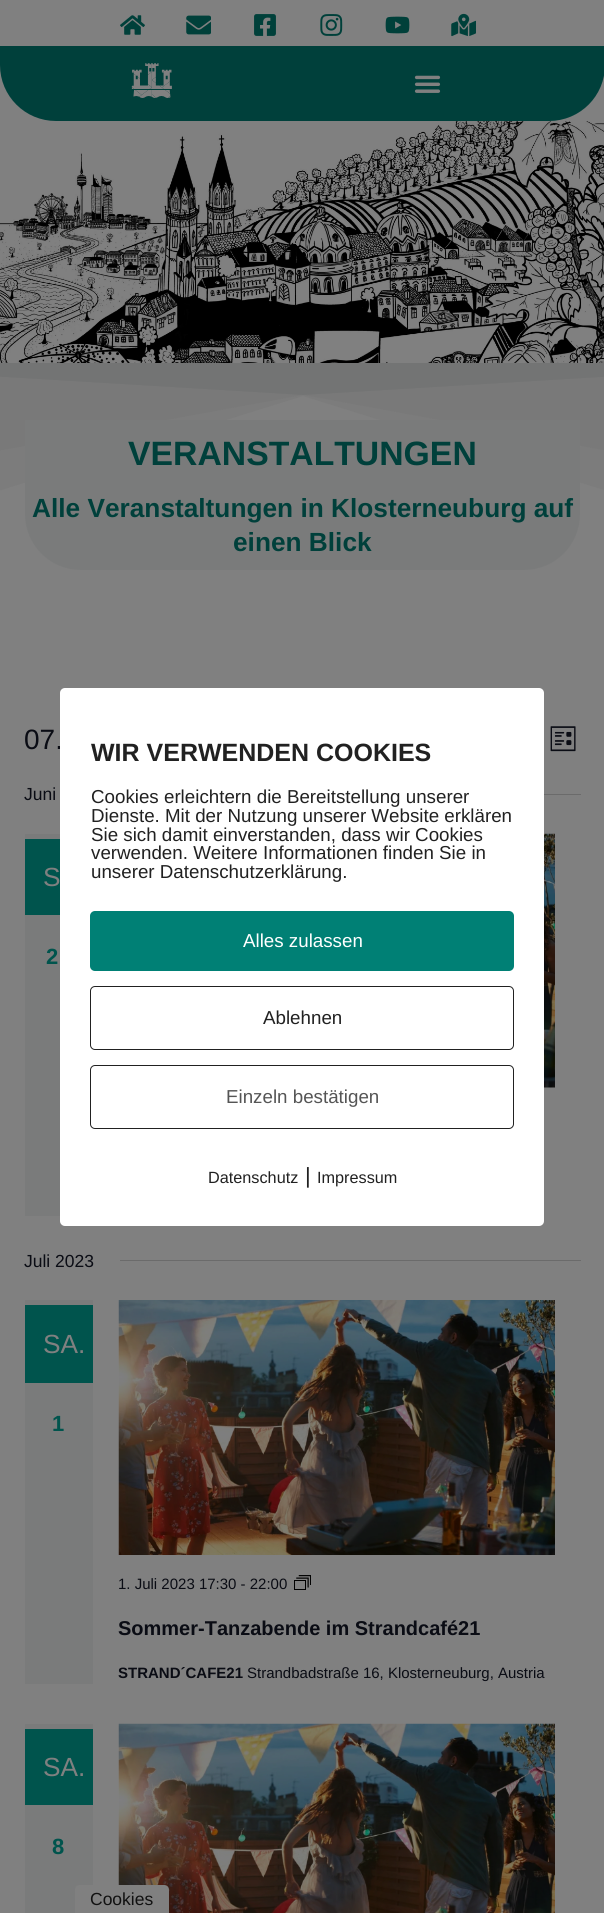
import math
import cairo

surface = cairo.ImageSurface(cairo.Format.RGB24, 604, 1913)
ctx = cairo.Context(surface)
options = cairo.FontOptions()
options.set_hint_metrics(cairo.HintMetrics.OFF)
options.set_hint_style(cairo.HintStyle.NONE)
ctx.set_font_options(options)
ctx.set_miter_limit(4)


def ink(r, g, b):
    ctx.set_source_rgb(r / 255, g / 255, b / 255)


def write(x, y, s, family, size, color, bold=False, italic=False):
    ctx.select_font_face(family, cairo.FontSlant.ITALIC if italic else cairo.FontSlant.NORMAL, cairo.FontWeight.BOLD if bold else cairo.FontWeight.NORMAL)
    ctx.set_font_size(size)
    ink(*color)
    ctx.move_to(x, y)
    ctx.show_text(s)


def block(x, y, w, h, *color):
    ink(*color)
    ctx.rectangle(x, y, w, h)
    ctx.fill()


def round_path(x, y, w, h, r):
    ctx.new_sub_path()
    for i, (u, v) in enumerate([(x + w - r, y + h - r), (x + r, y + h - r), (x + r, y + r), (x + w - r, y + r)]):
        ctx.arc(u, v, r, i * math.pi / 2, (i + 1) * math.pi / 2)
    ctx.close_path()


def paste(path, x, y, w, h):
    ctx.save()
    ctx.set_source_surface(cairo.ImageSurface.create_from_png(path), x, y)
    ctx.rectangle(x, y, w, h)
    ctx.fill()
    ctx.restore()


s1 = dict(family="Liberation Sans", size=33.75, color=(0, 64, 59), bold=True)
s2 = dict(family="Liberation Sans", size=26.25, color=(0, 64, 59), bold=True)
s3 = dict(family="Liberation Sans", size=28, color=(10, 12, 20))
s4 = dict(family="Liberation Sans", size=17.5, color=(10, 12, 20))
s5 = dict(family="Liberation Sans", size=26.25, color=(128, 128, 128))
s6 = dict(family="Liberation Sans", size=22, color=(0, 84, 77), bold=True)
s7 = dict(family="Liberation Sans", size=15, color=(10, 12, 20))
s8 = dict(family="Liberation Sans", size=20, color=(10, 12, 20), bold=True)
s9 = dict(family="Liberation Sans", size=15, color=(10, 12, 20), bold=True)
s10 = dict(family="Liberation Sans", size=25, color=(33, 33, 33), bold=True)
s11 = dict(family="Liberation Sans", size=18.75, color=(33, 33, 33))
s12 = dict(family="Liberation Sans", size=18.75, color=(255, 255, 255))
s13 = dict(family="Liberation Sans", size=18.75, color=(85, 85, 85))
s14 = dict(family="Liberation Sans", size=16.25, color=(33, 33, 33))
s15 = dict(family="Liberation Sans", size=22, color=(33, 33, 33))
s16 = dict(family="Liberation Sans", size=17.5, color=(17, 17, 17))

ink(128, 128, 128)
ctx.paint()
paste("pic1.png", 120, 15, 25, 20)
paste("pic2.png", 186, 15, 25, 20)
paste("pic3.png", 254, 14, 22, 22)
paste("pic4.png", 320, 14, 23, 22)
paste("pic5.png", 385, 16, 25, 18)
paste("pic6.png", 451, 13, 25, 24)
ink(0, 64, 59)
ctx.new_path()
ctx.move_to(0, 46)
ctx.line_to(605, 46)
ctx.line_to(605, 65)
ctx.curve_to(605, 96, 580, 121, 549, 121)
ctx.line_to(56, 121)
ctx.curve_to(25, 121, 0, 96, 0, 65)
ctx.close_path()
ctx.fill()
paste("pic7.png", 131, 63, 41, 35)
paste("pic8.png", 414, 75, 27, 18)
paste("pic9.png", 0, 121, 604, 242)
ctx.save()
ctx.rectangle(0, 363, 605, 158)
ctx.clip()
ctx.set_source_rgba(0.451, 0.455, 0.455, 0.33)
ctx.new_path()
ctx.move_to(-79, 362)
ctx.line_to(-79, 515)
ctx.line_to(303, 396)
ctx.line_to(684, 515)
ctx.line_to(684, 362)
ctx.close_path()
ctx.fill()
ctx.new_path()
ctx.move_to(-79, 362)
ctx.line_to(-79, 465)
ctx.line_to(303, 395)
ctx.line_to(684, 465)
ctx.line_to(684, 362)
ctx.close_path()
ctx.fill()
ink(115, 116, 116)
ctx.new_path()
ctx.move_to(-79, 362)
ctx.line_to(-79, 372)
ctx.line_to(303, 395)
ctx.line_to(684, 372)
ctx.line_to(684, 362)
ctx.close_path()
ctx.fill()
ctx.restore()
ink(122, 123, 123)
ctx.new_path()
ctx.move_to(25, 420)
ctx.line_to(580, 420)
ctx.line_to(580, 514)
ctx.curve_to(580, 545, 555, 570, 524, 570)
ctx.line_to(81, 570)
ctx.curve_to(50, 570, 25, 545, 25, 514)
ctx.close_path()
ctx.fill()
write(128, 465, "VERANSTALTUNGEN", **s1)
write(32, 517, "Alle Veranstaltungen in Klosterneuburg auf", **s2)
write(233, 551, "einen Blick", **s2)
write(24, 749, "07.", **s3)
paste("pic10.png", 550, 726, 26, 26)
write(24, 800, "Juni", **s4)
block(544, 794, 37, 1, 107, 107, 107)
block(25, 834, 35, 382, 122, 123, 123)
block(25, 839, 35, 76, 0, 84, 77)
write(43, 886, "S", **s5)
write(46, 964, "2", **s6)
paste("pic11.png", 544, 833, 11, 255)
write(24, 1267, "Juli 2023", **s4)
block(120, 1260, 461, 1, 107, 107, 107)
block(25, 1300, 68, 384, 122, 123, 123)
block(25, 1305, 68, 78, 0, 84, 77)
write(43, 1353, "SA.", **s5)
write(52, 1431, "1", **s6)
paste("pic12.png", 118, 1300, 437, 255)
write(118, 1589, "1. Juli 2023 17:30 - 22:00", **s7)
paste("pic13.png", 294, 1575, 17, 15)
write(118, 1635, "Sommer-Tanzabende im Strandcafé21", **s8)
write(118, 1678, "STRAND´CAFE21", **s9)
write(247, 1678, "Strandbadstraße 16, Klosterneuburg, Austria", **s7)
block(25, 1724, 68, 189, 122, 123, 123)
block(25, 1729, 68, 76, 0, 84, 77)
write(43, 1776, "SA.", **s5)
write(52, 1854, "8", **s6)
paste("pic14.png", 118, 1723, 437, 190)
ink(255, 255, 255)
round_path(60, 688, 484, 538, 5)
ctx.fill()
write(91, 761, "WIR VERWENDEN COOKIES", **s10)
write(91, 803, "Cookies erleichtern die Bereitstellung unserer", **s11)
write(91, 822, "Dienste. Mit der Nutzung unserer Website erklären", **s11)
write(91, 841, "Sie sich damit einverstanden, dass wir Cookies", **s11)
write(91, 859, "verwenden. Weitere Informationen finden Sie in", **s11)
write(91, 878, "unserer Datenschutzerklärung.", **s11)
ink(0, 128, 117)
round_path(90, 911, 424, 60, 5)
ctx.fill()
write(243, 947, "Alles zulassen", **s12)
round_path(90.5, 986.5, 423, 63, 4.5)
ink(33, 33, 33)
ctx.set_line_width(1)
ctx.stroke()
write(263, 1024, "Ablehnen", **s11)
round_path(90.5, 1065.5, 423, 63, 4.5)
ctx.stroke()
write(226, 1103, "Einzeln bestätigen", **s13)
write(208, 1183, "Datenschutz", **s14)
write(305, 1183, "|", **s15)
write(317, 1183, "Impressum", **s14)
ink(128, 128, 128)
ctx.new_path()
ctx.move_to(80, 1885)
ctx.line_to(164, 1885)
ctx.curve_to(167, 1885, 169, 1887, 169, 1890)
ctx.line_to(169, 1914)
ctx.line_to(75, 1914)
ctx.line_to(75, 1890)
ctx.curve_to(75, 1887, 77, 1885, 80, 1885)
ctx.close_path()
ctx.fill()
write(90, 1905, "Cookies", **s16)
surface.write_to_png("screenshot.png")
